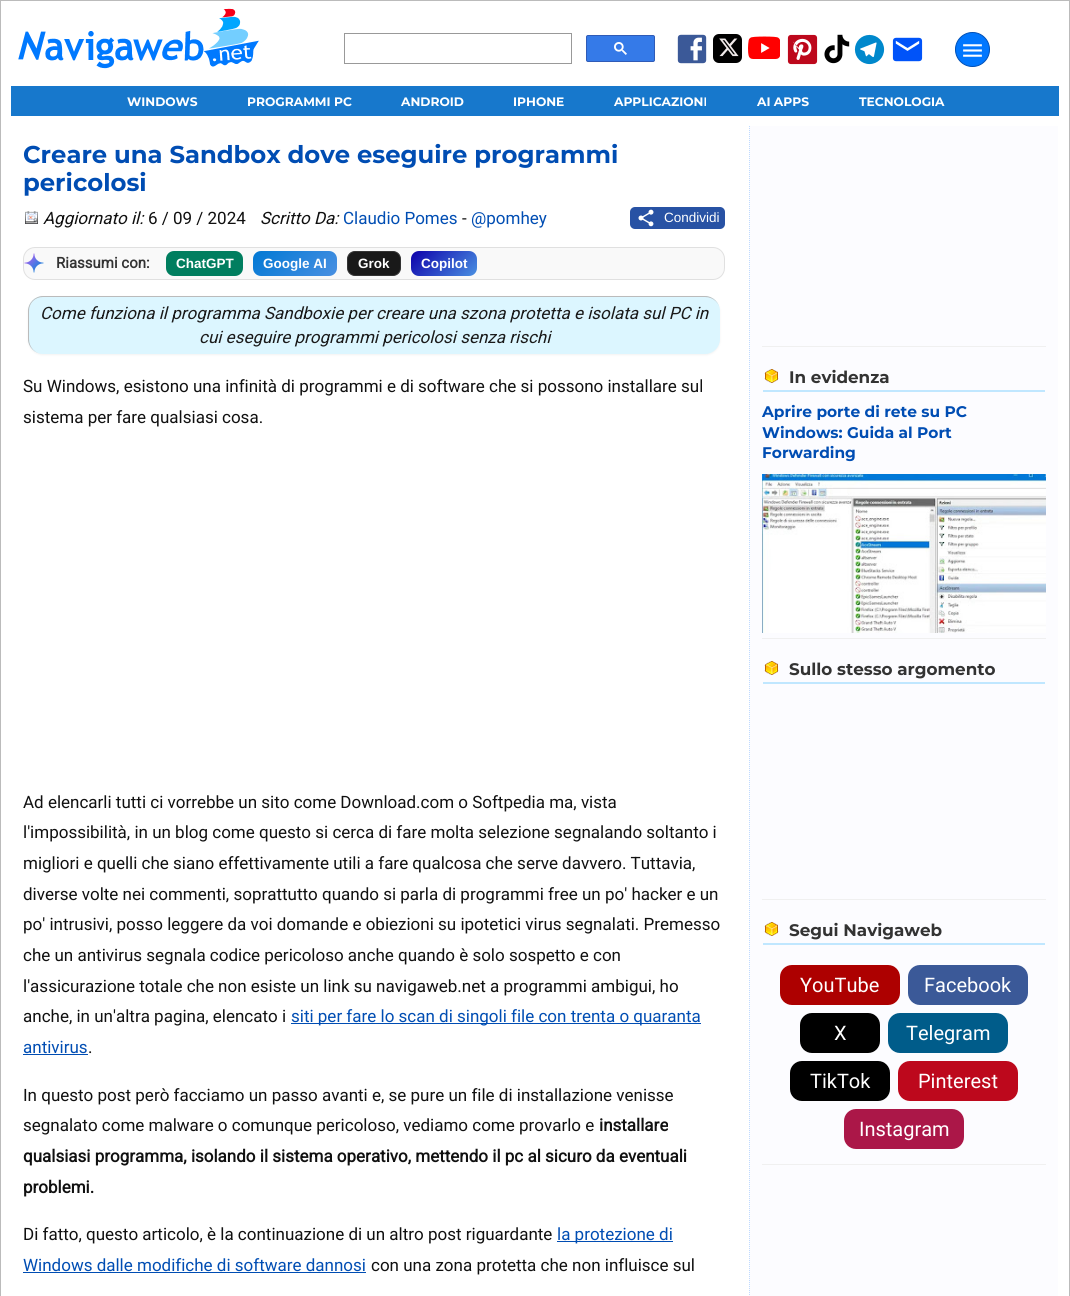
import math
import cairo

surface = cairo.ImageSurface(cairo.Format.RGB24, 1070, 1296)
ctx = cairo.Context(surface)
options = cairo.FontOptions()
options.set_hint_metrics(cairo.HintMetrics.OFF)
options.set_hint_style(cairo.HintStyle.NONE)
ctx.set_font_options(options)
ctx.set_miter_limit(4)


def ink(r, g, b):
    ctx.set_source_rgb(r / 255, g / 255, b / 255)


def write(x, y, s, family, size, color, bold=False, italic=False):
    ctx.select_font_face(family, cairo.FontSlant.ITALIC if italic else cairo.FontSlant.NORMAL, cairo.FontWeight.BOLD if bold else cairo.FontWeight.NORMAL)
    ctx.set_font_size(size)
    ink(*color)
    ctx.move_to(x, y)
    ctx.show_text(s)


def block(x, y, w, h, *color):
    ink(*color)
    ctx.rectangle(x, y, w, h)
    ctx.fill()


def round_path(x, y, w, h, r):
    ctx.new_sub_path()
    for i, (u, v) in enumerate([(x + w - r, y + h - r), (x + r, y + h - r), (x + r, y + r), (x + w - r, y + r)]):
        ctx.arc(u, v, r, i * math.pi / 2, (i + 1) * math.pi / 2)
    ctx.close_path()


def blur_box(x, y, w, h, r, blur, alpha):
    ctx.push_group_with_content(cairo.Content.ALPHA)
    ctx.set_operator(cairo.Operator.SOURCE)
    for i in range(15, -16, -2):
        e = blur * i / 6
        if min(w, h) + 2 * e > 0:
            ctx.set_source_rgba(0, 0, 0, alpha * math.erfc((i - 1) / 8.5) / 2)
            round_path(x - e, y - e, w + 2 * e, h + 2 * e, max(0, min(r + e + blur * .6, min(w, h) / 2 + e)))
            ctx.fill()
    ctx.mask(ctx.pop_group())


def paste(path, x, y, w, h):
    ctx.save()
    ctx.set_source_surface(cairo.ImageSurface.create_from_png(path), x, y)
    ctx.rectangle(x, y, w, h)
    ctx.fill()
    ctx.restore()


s1 = dict(family="Montserrat", size=12.25, color=(255, 255, 255), bold=True)
s2 = dict(family="Montserrat", size=24.3, color=(0, 77, 179), bold=True)
s3 = dict(family="Roboto", size=17, color=(16, 16, 16), italic=True)
s4 = dict(family="Roboto", size=17, color=(16, 16, 16))
s5 = dict(family="Roboto", size=17, color=(0, 77, 179))
s6 = dict(family="Roboto", size=15, color=(51, 51, 51), bold=True)
s7 = dict(family="Liberation Sans", size=13.5, color=(255, 255, 255), bold=True)
s8 = dict(family="Liberation Sans", size=13.5, color=(255, 255, 255))
s9 = dict(family="Roboto", size=17, color=(26, 26, 26), italic=True)
s10 = dict(family="Roboto", size=17, color=(16, 16, 16), bold=True)
s11 = dict(family="Montserrat", size=16.75, color=(51, 51, 51), bold=True)
s12 = dict(family="Montserrat", size=15.4, color=(0, 77, 179), bold=True)
s13 = dict(family="Roboto", size=20, color=(255, 255, 255))

ink(255, 255, 255)
ctx.paint()
ctx.rectangle(0.5, 0.5, 1069, 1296)
ink(187, 187, 187)
ctx.set_line_width(1)
ctx.stroke()
paste("pic1.png", 18, 8, 241, 61)
ctx.rectangle(344.5, 33.5, 227, 30)
ink(153, 153, 153)
ctx.stroke()
ink(53, 122, 232)
round_path(586.5, 35.5, 68, 26, 1.5)
ctx.fill_preserve()
ink(47, 91, 183)
ctx.stroke()
paste("pic2.png", 614, 42, 13, 13)
paste("pic3.png", 677, 34, 30, 30)
ink(0, 0, 0)
round_path(713, 34, 29, 29, 6)
ctx.fill()
paste("pic4.png", 719, 38, 20, 19)
paste("pic5.png", 748, 36, 32, 23)
paste("pic6.png", 787, 34, 31, 31)
paste("pic7.png", 824, 34, 26, 30)
paste("pic8.png", 854, 34, 31, 31)
paste("pic9.png", 892, 37, 31, 25)
ink(0, 119, 255)
ctx.arc(972.5, 49.5, 17, 0, 2 * math.pi)
ctx.fill_preserve()
ink(0, 80, 183)
ctx.stroke()
paste("pic10.png", 963, 44, 19, 13)
block(11, 86, 1048, 30, 23, 120, 204)
write(127, 106, "WINDOWS", **s1)
write(247, 106, "PROGRAMMI PC", **s1)
write(401, 106, "ANDROID", **s1)
write(513, 106, "IPHONE", **s1)
write(614, 106, "APPLICAZIONI", **s1)
write(757, 106, "AI APPS", **s1)
write(859, 106, "TECNOLOGIA", **s1)
write(23, 163, "Creare una Sandbox dove eseguire programmi", **s2)
write(23, 191, "pericolosi", **s2)
paste("pic11.png", 25, 211, 13, 13)
write(43, 224, "Aggiornato il:", **s3)
write(148, 224, "6 / 09 / 2024", **s4)
write(260, 224, "Scritto Da:", **s3)
write(343, 224, "Claudio Pomes", **s5)
write(462, 224, "-", **s4)
write(471, 224, "@pomhey", **s5)
ink(249, 249, 249)
round_path(23.5, 247.5, 701, 32, 11.5)
ctx.fill_preserve()
ink(224, 224, 224)
ctx.stroke()
paste("pic12.png", 24, 253, 20, 20)
write(56, 268, "Riassumi con:", **s6)
ink(0, 126, 95)
round_path(166, 251, 77, 25, 8)
ctx.fill()
write(176, 268, "ChatGPT", **s7)
gradient = cairo.LinearGradient(268, 236, 322, 291)
gradient.add_color_stop_rgba(0, 0, 0.471, 0.831, 1)
gradient.add_color_stop_rgba(1, 0.29, 0.565, 0.886, 1)
ctx.set_source(gradient)
round_path(253, 251, 84, 25, 8)
ctx.fill()
write(263, 268, "Google AI", **s7)
ink(25, 25, 25)
round_path(347.5, 251.5, 53, 24, 7.5)
ctx.fill_preserve()
ink(51, 51, 51)
ctx.stroke()
write(358, 268, "Grok", **s7)
gradient = cairo.LinearGradient(421, 241, 467, 286)
gradient.add_color_stop_rgba(0, 0.051, 0, 0.667, 1)
gradient.add_color_stop_rgba(1, 0.29, 0.565, 0.886, 1)
ctx.set_source(gradient)
round_path(411, 251, 66, 25, 8)
ctx.fill()
write(421, 268, "Copilot", **s7)
ink(40, 82, 164)
round_path(630, 207, 95, 22, 5)
ctx.fill()
paste("pic13.png", 638, 209, 16, 18)
write(664, 222, "Condividi", **s8)
ink(242, 242, 242)
blur_box(28, 297, 692, 58, 15, 1, 1)
ink(220, 246, 255)
round_path(28, 296, 692, 58, 15)
ctx.fill()
ink(187, 187, 187)
ctx.set_fill_rule(cairo.FillRule.EVEN_ODD)
ctx.new_path()
ctx.move_to(43, 296)
ctx.line_to(705, 296)
ctx.curve_to(713, 296, 720, 303, 720, 311)
ctx.line_to(720, 339)
ctx.curve_to(720, 347, 713, 354, 705, 354)
ctx.line_to(43, 354)
ctx.curve_to(35, 354, 28, 347, 28, 339)
ctx.line_to(28, 311)
ctx.curve_to(28, 303, 35, 296, 43, 296)
ctx.close_path()
ctx.move_to(43, 297)
ctx.line_to(705, 297)
ctx.curve_to(713, 297, 720, 303, 720, 311)
ctx.line_to(720, 339)
ctx.curve_to(720, 347, 713, 354, 705, 354)
ctx.line_to(43, 354)
ctx.curve_to(35, 354, 29, 347, 29, 339)
ctx.line_to(29, 311)
ctx.curve_to(29, 303, 35, 297, 43, 297)
ctx.close_path()
ctx.fill()
write(40, 319, "Come funziona il programma Sandboxie per creare una szona protetta e isolata sul PC in", **s9)
write(199, 343, "cui eseguire programmi pericolosi senza rischi", **s9)
write(23, 392, "Su Windows, esistono una infinità di programmi e di software che si possono installare sul", **s4)
write(23, 423, "sistema per fare qualsiasi cosa.", **s4)
write(23, 808, "Ad elencarli tutti ci vorrebbe un sito come Download.com o Softpedia ma, vista", **s4)
write(23, 838, "l'impossibilità, in un blog come questo si cerca di fare molta selezione segnalando soltanto i", **s4)
write(23, 869, "migliori e quelli che siano effettivamente utili a fare qualcosa che serve davvero. Tuttavia,", **s4)
write(23, 900, "diverse volte nei commenti, soprattutto quando si parla di programmi free un po' hacker e un", **s4)
write(23, 930, "po' intrusivi, posso leggere da voi domande e obiezioni su ipotetici virus segnalati. Premesso", **s4)
write(23, 961, "che un antivirus segnala codice pericoloso anche quando è solo sospetto e con", **s4)
write(23, 992, "l'assicurazione totale che non esiste un link su navigaweb.net a programmi ambigui, ho", **s4)
write(23, 1022, "anche, in un'altra pagina, elencato i", **s4)
block(291, 1023, 410, 1, 0, 77, 179)
write(291, 1022, "siti per fare lo scan di singoli file con trenta o quaranta", **s5)
write(23, 1053, "antivirus", **s5)
block(23, 1054, 65, 1, 0, 77, 179)
write(88, 1053, ".", **s4)
write(23, 1101, "In questo post però facciamo un passo avanti e, se pure un file di installazione venisse", **s4)
write(23, 1131, "segnalato come malware o comunque pericoloso, vediamo come provarlo e", **s4)
write(599, 1131, "installare", **s10)
write(23, 1162, "qualsiasi programma, isolando il sistema operativo, mettendo il pc al sicuro da eventuali", **s10)
write(23, 1193, "problemi.", **s10)
write(23, 1240, "Di fatto, questo articolo, è la continuazione di un altro post riguardante", **s4)
block(557, 1241, 116, 1, 0, 77, 179)
write(557, 1240, "la protezione di", **s5)
write(23, 1271, "Windows dalle modifiche di software dannosi", **s5)
block(23, 1272, 343, 1, 0, 77, 179)
write(371, 1271, "con una zona protetta che non influisce sul", **s4)
block(749, 126, 309, 1170, 252, 252, 255)
ctx.new_path()
ctx.move_to(749.5, 126)
ctx.line_to(749.5, 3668)
ink(190, 218, 255)
ctx.set_dash([1, 1])
ctx.stroke()
block(762, 346, 284, 1, 240, 240, 240)
paste("pic14.png", 764, 369, 15, 14)
block(763, 390, 282, 2, 192, 231, 255)
write(789, 383, "In evidenza", **s11)
block(762, 638, 284, 1, 240, 240, 240)
write(762, 417, "Aprire porte di rete su PC", **s12)
write(762, 438, "Windows: Guida al Port", **s12)
write(762, 458, "Forwarding", **s12)
paste("pic15.png", 762, 474, 284, 159)
paste("pic14.png", 764, 661, 15, 14)
block(763, 682, 282, 2, 192, 231, 255)
write(789, 675, "Sullo stesso argomento", **s11)
block(762, 899, 284, 1, 240, 240, 240)
paste("pic14.png", 764, 922, 15, 14)
block(763, 943, 282, 2, 192, 231, 255)
write(789, 936, "Segui Navigaweb", **s11)
block(762, 1164, 284, 1, 240, 240, 240)
ink(173, 0, 0)
round_path(780, 965, 120, 40, 12)
ctx.fill()
write(800, 992, "YouTube", **s13)
ink(59, 89, 152)
round_path(908, 965, 120, 40, 12)
ctx.fill()
write(924, 992, "Facebook", **s13)
ink(0, 0, 0)
round_path(800, 1013, 80, 40, 12)
ctx.fill()
write(834, 1040, "X", **s13)
ink(0, 92, 138)
round_path(888, 1013, 120, 40, 12)
ctx.fill()
write(906, 1040, "Telegram", **s13)
ink(0, 0, 0)
round_path(790, 1061, 100, 40, 12)
ctx.fill()
write(810, 1088, "TikTok", **s13)
ink(189, 8, 28)
round_path(898, 1061, 120, 40, 12)
ctx.fill()
write(918, 1088, "Pinterest", **s13)
ink(171, 23, 72)
round_path(844, 1109, 120, 40, 12)
ctx.fill()
write(859, 1136, "Instagram", **s13)
surface.write_to_png("screenshot.png")
